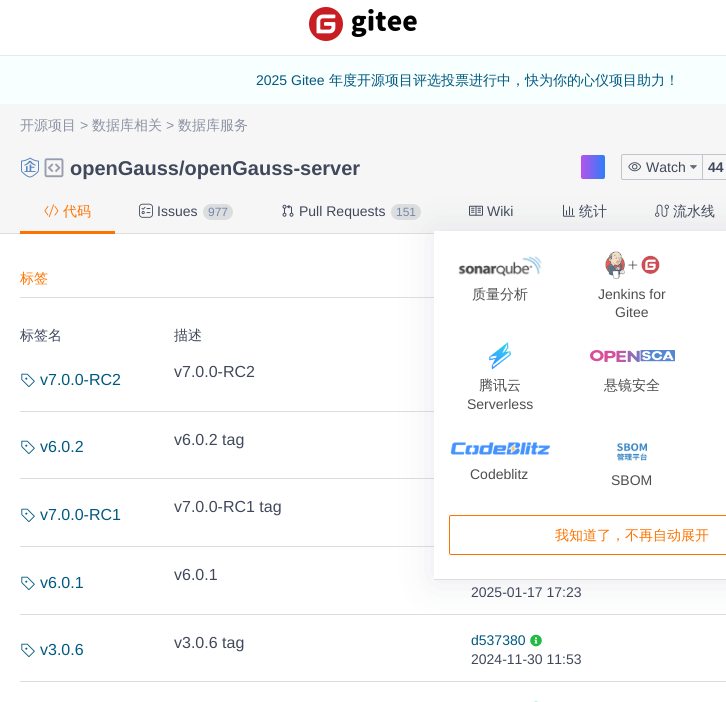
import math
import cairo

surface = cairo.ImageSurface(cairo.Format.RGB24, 726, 702)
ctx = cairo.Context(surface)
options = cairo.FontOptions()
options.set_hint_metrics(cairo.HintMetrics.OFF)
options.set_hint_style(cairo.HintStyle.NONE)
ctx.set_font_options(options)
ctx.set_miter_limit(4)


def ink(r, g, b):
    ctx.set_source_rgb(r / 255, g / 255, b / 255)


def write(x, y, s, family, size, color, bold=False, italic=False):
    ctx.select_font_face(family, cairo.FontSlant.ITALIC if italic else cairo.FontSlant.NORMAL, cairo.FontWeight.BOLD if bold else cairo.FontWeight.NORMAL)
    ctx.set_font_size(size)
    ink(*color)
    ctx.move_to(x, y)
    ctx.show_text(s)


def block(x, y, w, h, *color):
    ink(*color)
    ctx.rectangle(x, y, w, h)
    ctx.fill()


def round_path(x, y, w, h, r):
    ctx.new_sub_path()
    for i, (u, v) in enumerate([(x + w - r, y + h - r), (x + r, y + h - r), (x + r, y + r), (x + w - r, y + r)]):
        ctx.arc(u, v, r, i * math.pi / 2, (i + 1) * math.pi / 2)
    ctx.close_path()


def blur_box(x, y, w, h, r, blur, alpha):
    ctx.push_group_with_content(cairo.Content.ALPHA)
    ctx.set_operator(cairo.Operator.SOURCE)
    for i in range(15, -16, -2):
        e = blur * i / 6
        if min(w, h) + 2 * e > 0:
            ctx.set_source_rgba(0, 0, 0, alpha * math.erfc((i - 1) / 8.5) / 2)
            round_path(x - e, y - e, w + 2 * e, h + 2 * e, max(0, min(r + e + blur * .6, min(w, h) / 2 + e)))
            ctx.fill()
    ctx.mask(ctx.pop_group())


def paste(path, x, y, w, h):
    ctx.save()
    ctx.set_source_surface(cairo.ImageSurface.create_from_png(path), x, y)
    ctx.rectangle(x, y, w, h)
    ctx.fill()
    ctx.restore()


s1 = dict(family="Liberation Sans", size=14, color=(0, 89, 128))
s2 = dict(family="WenQuanYi Zen Hei Medium", size=14, color=(0, 89, 128))
s3 = dict(family="WenQuanYi Zen Hei Medium", size=14, color=(140, 146, 164))
s4 = dict(family="Liberation Sans", size=14, color=(140, 146, 164))
s5 = dict(family="Liberation Sans", size=20, color=(64, 72, 91), bold=True)
s6 = dict(family="Liberation Sans", size=14, color=(64, 72, 91))
s7 = dict(family="Liberation Sans", size=14, color=(64, 72, 91), bold=True)
s8 = dict(family="WenQuanYi Zen Hei Medium", size=14, color=(254, 115, 0))
s9 = dict(family="Liberation Sans", size=12, color=(118, 135, 171))
s10 = dict(family="WenQuanYi Zen Hei Medium", size=14, color=(64, 72, 91))
s11 = dict(family="WenQuanYi Zen Hei Medium", size=14, color=(78, 78, 78))
s12 = dict(family="Liberation Sans", size=14, color=(78, 78, 78))
s13 = dict(family="Liberation Sans", size=16, color=(64, 72, 91))
s14 = dict(family="Liberation Sans", size=16, color=(0, 89, 128))

ink(255, 255, 255)
ctx.paint()
block(0, 55, 726, 1, 227, 233, 237)
paste("pic1.png", 309, 7, 108, 34)
block(0, 56, 726, 48, 248, 255, 255)
write(256, 85, "2025 Gitee", **s1)
write(329, 85, "年度开源项目评选投票进行中，快为你的心仪项目助力！", **s2)
block(0, 104, 726, 129, 246, 246, 246)
block(0, 233, 434, 1, 222, 222, 223)
write(20, 130, "开源项目", **s3)
write(80, 130, ">", **s4)
write(92, 130, "数据库相关", **s3)
write(166, 130, ">", **s4)
write(178, 130, "数据库服务", **s3)
paste("pic2.png", 21, 157, 18, 21)
paste("pic3.png", 44, 158, 20, 20)
write(70, 175, "openGauss/openGauss-server", **s5)
gradient = cairo.LinearGradient(605, 167, 581, 167)
gradient.add_color_stop_rgba(0, 0.173, 0.494, 0.973, 1)
gradient.add_color_stop_rgba(1, 0.718, 0.322, 0.922, 1)
ctx.set_source(gradient)
round_path(581, 155, 24, 24, 2)
ctx.fill()
round_path(621.5, 154.5, 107, 25, 1.5)
ink(193, 196, 205)
ctx.set_line_width(1)
ctx.stroke()
paste("pic4.png", 628, 162, 13, 10)
write(646, 172, "Watch", **s6)
paste("pic5.png", 690, 165, 7, 4)
block(702, 155, 1, 24, 193, 196, 205)
write(708, 172, "44", **s7)
block(20, 231, 95, 3, 254, 115, 0)
paste("pic6.png", 44, 204, 15, 14)
write(63, 216, "代码", **s8)
paste("pic7.png", 139, 203, 14, 15)
write(157, 216, "Issues", **s6)
ink(220, 221, 222)
round_path(203, 204, 30, 16, 8)
ctx.fill()
write(208, 216, "977", **s9)
paste("pic8.png", 282, 204, 12, 13)
write(299, 216, "Pull Requests", **s6)
ink(220, 221, 222)
round_path(391, 204, 30, 16, 8)
ctx.fill()
write(396, 216, "151", **s9)
paste("pic9.png", 469, 205, 14, 11)
write(487, 216, "Wiki", **s6)
paste("pic10.png", 563, 204, 12, 13)
write(579, 216, "统计", **s10)
paste("pic11.png", 655, 204, 14, 13)
write(673, 216, "流水线", **s10)
block(20, 297, 414, 1, 222, 222, 223)
block(20, 411, 414, 1, 221, 221, 221)
block(20, 478, 414, 1, 221, 221, 221)
block(20, 546, 414, 1, 221, 221, 221)
block(20, 614, 706, 1, 221, 221, 221)
paste("pic19.png", 530, 634, 12, 13)
ink(140, 146, 163)
blur_box(434, 232, 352, 349, 0, 20, 0.2)
block(434, 231, 292, 348, 255, 255, 255)
block(434, 579, 292, 1, 222, 222, 223)
paste("pic12.png", 458, 256, 84, 21)
write(472, 299, "质量分析", **s11)
paste("pic13.png", 605, 251, 55, 28)
write(598, 299, "Jenkins for", **s12)
write(615, 317, "Gitee", **s12)
paste("pic14.png", 489, 342, 23, 28)
write(479, 390, "腾讯云", **s11)
write(467, 409, "Serverless", **s12)
paste("pic15.png", 590, 350, 85, 12)
write(604, 390, "悬镜安全", **s11)
paste("pic16.png", 450, 442, 100, 13)
write(470, 479, "Codeblitz", **s12)
paste("pic17.png", 617, 443, 30, 18)
write(611, 485, "SBOM", **s12)
round_path(449.5, 515.5, 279, 39, 1.5)
ink(254, 115, 0)
ctx.stroke()
write(555, 540, "我知道了，不再自动展开", **s8)
write(20, 283, "标签", **s8)
write(20, 340, "标签名", **s10)
write(174, 340, "描述", **s10)
write(174, 377, "v7.0.0-RC2", **s13)
paste("pic18.png", 21, 373, 14, 15)
write(40, 385, "v7.0.0-RC2", **s14)
paste("pic18.png", 21, 440, 14, 15)
write(40, 452, "v6.0.2", **s14)
write(174, 445, "v6.0.2 tag", **s13)
paste("pic18.png", 21, 508, 14, 15)
write(40, 520, "v7.0.0-RC1", **s14)
write(174, 512, "v7.0.0-RC1 tag", **s13)
write(174, 580, "v6.0.1", **s13)
paste("pic18.png", 21, 576, 14, 15)
write(40, 588, "v6.0.1", **s14)
write(471, 597, "2025-01-17 17:23", **s6)
block(20, 681, 706, 1, 221, 221, 221)
paste("pic18.png", 21, 643, 14, 15)
write(40, 655, "v3.0.6", **s14)
write(174, 648, "v3.0.6 tag", **s13)
write(471, 645, "d537380", **s1)
write(471, 664, "2024-11-30 11:53", **s6)
paste("pic20.png", 534, 701, 4, 1)
surface.write_to_png("screenshot.png")
